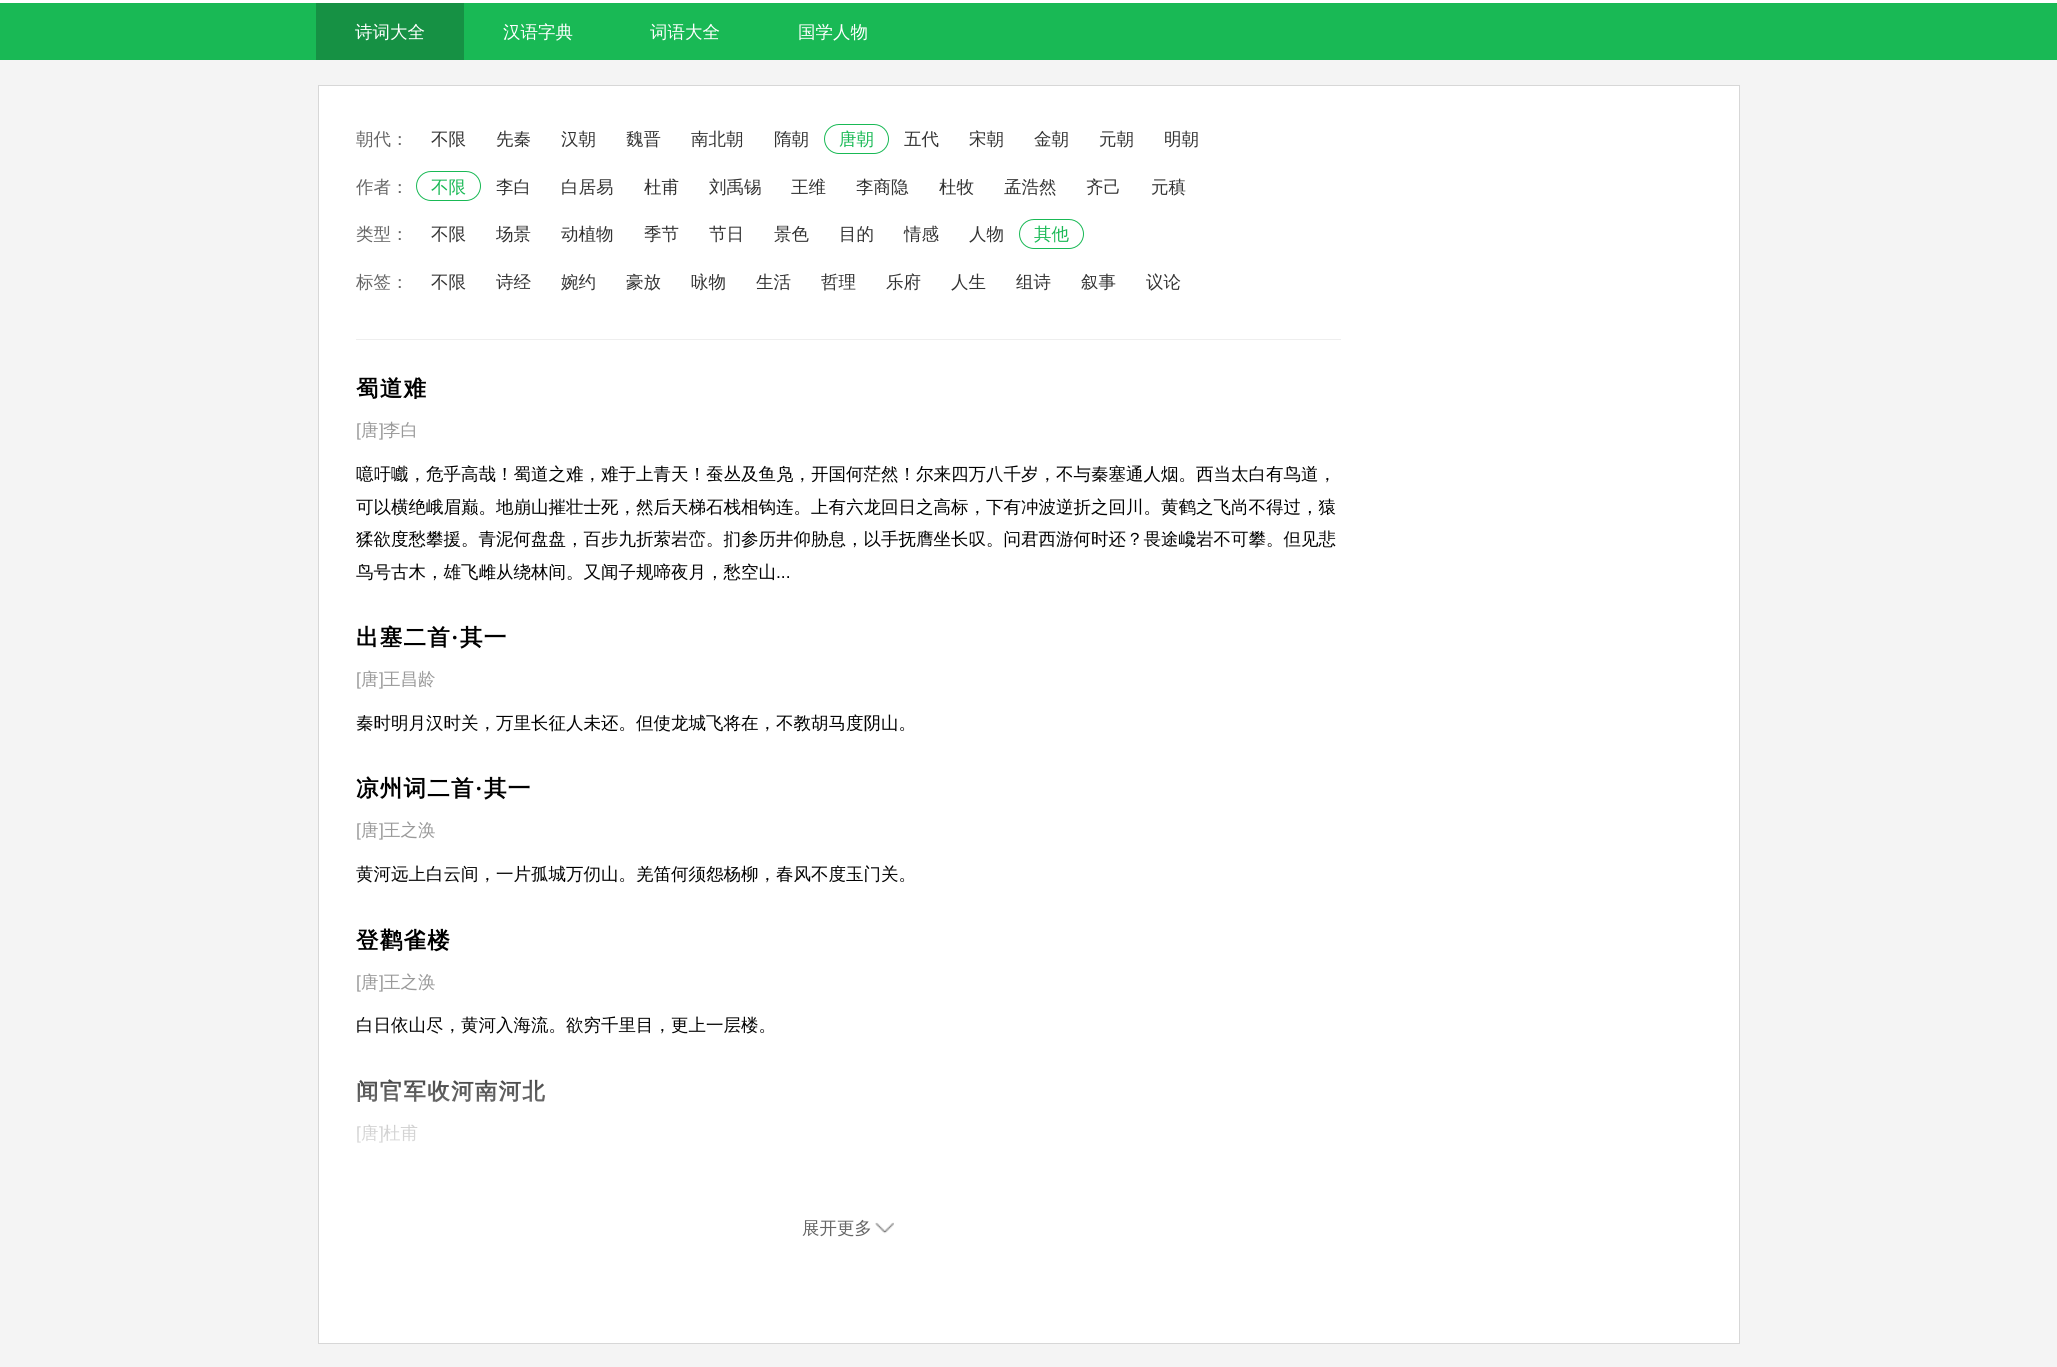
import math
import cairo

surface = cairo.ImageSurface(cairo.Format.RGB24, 2057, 1367)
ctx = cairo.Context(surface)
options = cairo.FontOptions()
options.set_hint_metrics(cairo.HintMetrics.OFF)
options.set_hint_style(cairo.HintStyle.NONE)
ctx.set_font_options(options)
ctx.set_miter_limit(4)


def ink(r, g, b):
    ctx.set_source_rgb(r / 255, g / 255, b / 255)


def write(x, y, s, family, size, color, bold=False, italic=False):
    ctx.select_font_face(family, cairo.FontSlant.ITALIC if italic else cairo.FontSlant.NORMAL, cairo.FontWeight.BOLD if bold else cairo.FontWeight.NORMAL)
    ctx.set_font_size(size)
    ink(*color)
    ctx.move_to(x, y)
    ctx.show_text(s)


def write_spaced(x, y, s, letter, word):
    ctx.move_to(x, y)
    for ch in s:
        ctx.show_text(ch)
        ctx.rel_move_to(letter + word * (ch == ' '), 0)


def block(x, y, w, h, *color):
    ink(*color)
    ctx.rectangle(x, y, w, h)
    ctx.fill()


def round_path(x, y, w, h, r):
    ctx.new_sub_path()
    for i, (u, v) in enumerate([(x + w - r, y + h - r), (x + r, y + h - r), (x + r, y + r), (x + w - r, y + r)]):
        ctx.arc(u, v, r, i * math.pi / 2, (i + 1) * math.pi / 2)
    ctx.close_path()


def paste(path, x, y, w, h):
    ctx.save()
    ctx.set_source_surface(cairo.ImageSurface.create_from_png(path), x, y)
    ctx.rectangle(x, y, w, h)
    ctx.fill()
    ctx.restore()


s1 = dict(family="WenQuanYi Zen Hei Medium", size=17.5, color=(255, 255, 255))
s2 = dict(family="WenQuanYi Zen Hei Medium", size=17.5, color=(102, 102, 102))
s3 = dict(family="WenQuanYi Zen Hei Medium", size=17.5, color=(51, 51, 51))
s4 = dict(family="WenQuanYi Zen Hei Medium", size=17.5, color=(25, 185, 85))
s5 = dict(family="Liberation Sans", size=17.5, color=(153, 153, 153))
s6 = dict(family="WenQuanYi Zen Hei Medium", size=17.5, color=(153, 153, 153))
s7 = dict(family="WenQuanYi Zen Hei Medium", size=17.5, color=(0, 0, 0))
s8 = dict(family="Liberation Sans", size=17.5, color=(0, 0, 0))

ink(244, 244, 244)
ctx.paint()
block(0, 0, 2057, 3, 255, 255, 255)
block(0, 3, 2057, 57, 25, 185, 85)
block(316, 3, 148, 57, 22, 145, 68)
write(355, 38, "诗词大全", **s1)
write(503, 38, "汉语字典", **s1)
write(650, 38, "词语大全", **s1)
write(798, 38, "国学人物", **s1)
ctx.rectangle(318.5, 85.5, 1421, 1258)
ctx.fill_preserve()
ink(215, 215, 215)
ctx.set_line_width(1)
ctx.stroke()
write(356, 145, "朝代：", **s2)
write(431, 145, "不限", **s3)
write(496, 145, "先秦", **s3)
write(561, 145, "汉朝", **s3)
write(626, 145, "魏晋", **s3)
write(691, 145, "南北朝", **s3)
write(774, 145, "隋朝", **s3)
round_path(824.5, 124.5, 64, 29, 14.5)
ink(25, 185, 85)
ctx.stroke()
write(839, 145, "唐朝", **s4)
write(904, 145, "五代", **s3)
write(969, 145, "宋朝", **s3)
write(1034, 145, "金朝", **s3)
write(1099, 145, "元朝", **s3)
write(1164, 145, "明朝", **s3)
write(356, 193, "作者：", **s2)
round_path(416.5, 171.5, 64, 29, 14.5)
ink(25, 185, 85)
ctx.stroke()
write(431, 193, "不限", **s4)
write(496, 193, "李白", **s3)
write(561, 193, "白居易", **s3)
write(644, 193, "杜甫", **s3)
write(709, 193, "刘禹锡", **s3)
write(791, 193, "王维", **s3)
write(856, 193, "李商隐", **s3)
write(939, 193, "杜牧", **s3)
write(1004, 193, "孟浩然", **s3)
write(1086, 193, "齐己", **s3)
write(1151, 193, "元稹", **s3)
write(356, 240, "类型：", **s2)
write(431, 240, "不限", **s3)
write(496, 240, "场景", **s3)
write(561, 240, "动植物", **s3)
write(644, 240, "季节", **s3)
write(709, 240, "节日", **s3)
write(774, 240, "景色", **s3)
write(839, 240, "目的", **s3)
write(904, 240, "情感", **s3)
write(969, 240, "人物", **s3)
round_path(1019.5, 219.5, 64, 29, 14.5)
ink(25, 185, 85)
ctx.stroke()
write(1034, 240, "其他", **s4)
write(356, 288, "标签：", **s2)
write(431, 288, "不限", **s3)
write(496, 288, "诗经", **s3)
write(561, 288, "婉约", **s3)
write(626, 288, "豪放", **s3)
write(691, 288, "咏物", **s3)
write(756, 288, "生活", **s3)
write(821, 288, "哲理", **s3)
write(886, 288, "乐府", **s3)
write(951, 288, "人生", **s3)
write(1016, 288, "组诗", **s3)
write(1081, 288, "叙事", **s3)
write(1146, 288, "议论", **s3)
block(356, 339, 985, 1, 238, 238, 238)
ctx.select_font_face("WenQuanYi Zen Hei", cairo.FontSlant.NORMAL, cairo.FontWeight.BOLD)
ctx.set_font_size(22.5)
ink(0, 0, 0)
write_spaced(356, 396, "蜀道难", 1.25, 0)
write(356, 436, "[", **s5)
write(361, 436, "唐", **s6)
write(379, 436, "]", **s5)
write(383, 436, "李白", **s6)
write(356, 480, "噫吁嚱，危乎高哉！蜀道之难，难于上青天！蚕丛及鱼凫，开国何茫然！尔来四万八千岁，不与秦塞通人烟。西当太白有鸟道，", **s7)
write(356, 513, "可以横绝峨眉巅。地崩山摧壮士死，然后天梯石栈相钩连。上有六龙回日之高标，下有冲波逆折之回川。黄鹤之飞尚不得过，猿", **s7)
write(356, 545, "猱欲度愁攀援。青泥何盘盘，百步九折萦岩峦。扪参历井仰胁息，以手抚膺坐长叹。问君西游何时还？畏途巉岩不可攀。但见悲", **s7)
write(356, 578, "鸟号古木，雄飞雌从绕林间。又闻子规啼夜月，愁空山", **s7)
write(776, 578, "...", **s8)
ctx.select_font_face("WenQuanYi Zen Hei", cairo.FontSlant.NORMAL, cairo.FontWeight.BOLD)
ctx.set_font_size(22.5)
write_spaced(356, 645, "出塞二首", 1.25, 0)
ctx.select_font_face("Liberation Serif", cairo.FontSlant.NORMAL, cairo.FontWeight.BOLD)
write_spaced(451, 645, "·", 1.25, 0)
ctx.select_font_face("WenQuanYi Zen Hei", cairo.FontSlant.NORMAL, cairo.FontWeight.BOLD)
write_spaced(460, 645, "其一", 1.25, 0)
write(356, 685, "[", **s5)
write(361, 685, "唐", **s6)
write(379, 685, "]", **s5)
write(383, 685, "王昌龄", **s6)
write(356, 729, "秦时明月汉时关，万里长征人未还。但使龙城飞将在，不教胡马度阴山。", **s7)
ctx.select_font_face("WenQuanYi Zen Hei", cairo.FontSlant.NORMAL, cairo.FontWeight.BOLD)
ctx.set_font_size(22.5)
write_spaced(356, 796, "凉州词二首", 1.25, 0)
ctx.select_font_face("Liberation Serif", cairo.FontSlant.NORMAL, cairo.FontWeight.BOLD)
write_spaced(475, 796, "·", 1.25, 0)
ctx.select_font_face("WenQuanYi Zen Hei", cairo.FontSlant.NORMAL, cairo.FontWeight.BOLD)
write_spaced(484, 796, "其一", 1.25, 0)
write(356, 836, "[", **s5)
write(361, 836, "唐", **s6)
write(379, 836, "]", **s5)
write(383, 836, "王之涣", **s6)
write(356, 880, "黄河远上白云间，一片孤城万仞山。羌笛何须怨杨柳，春风不度玉门关。", **s7)
ctx.select_font_face("WenQuanYi Zen Hei", cairo.FontSlant.NORMAL, cairo.FontWeight.BOLD)
ctx.set_font_size(22.5)
write_spaced(356, 948, "登鹳雀楼", 1.25, 0)
write(356, 988, "[", **s5)
write(361, 988, "唐", **s6)
write(379, 988, "]", **s5)
write(383, 988, "王之涣", **s6)
write(356, 1031, "白日依山尽，黄河入海流。欲穷千里目，更上一层楼。", **s7)
ctx.select_font_face("WenQuanYi Zen Hei", cairo.FontSlant.NORMAL, cairo.FontWeight.BOLD)
ctx.set_font_size(22.5)
write_spaced(356, 1099, "闻官军收河南河北", 1.25, 0)
write(356, 1139, "[", **s5)
write(361, 1139, "唐", **s6)
write(379, 1139, "]", **s5)
write(383, 1139, "杜甫", **s6)
gradient = cairo.LinearGradient(848, 1025, 848, 1213)
gradient.add_color_stop_rgba(0, 1, 1, 1, 0)
gradient.add_color_stop_rgba(1, 1, 1, 1, 1)
ctx.set_source(gradient)
ctx.rectangle(357, 1029, 407, 114)
ctx.fill()
write(802, 1234, "展开更多", **s2)
paste("pic1.png", 875, 1222, 19, 12)
surface.write_to_png("screenshot.png")
